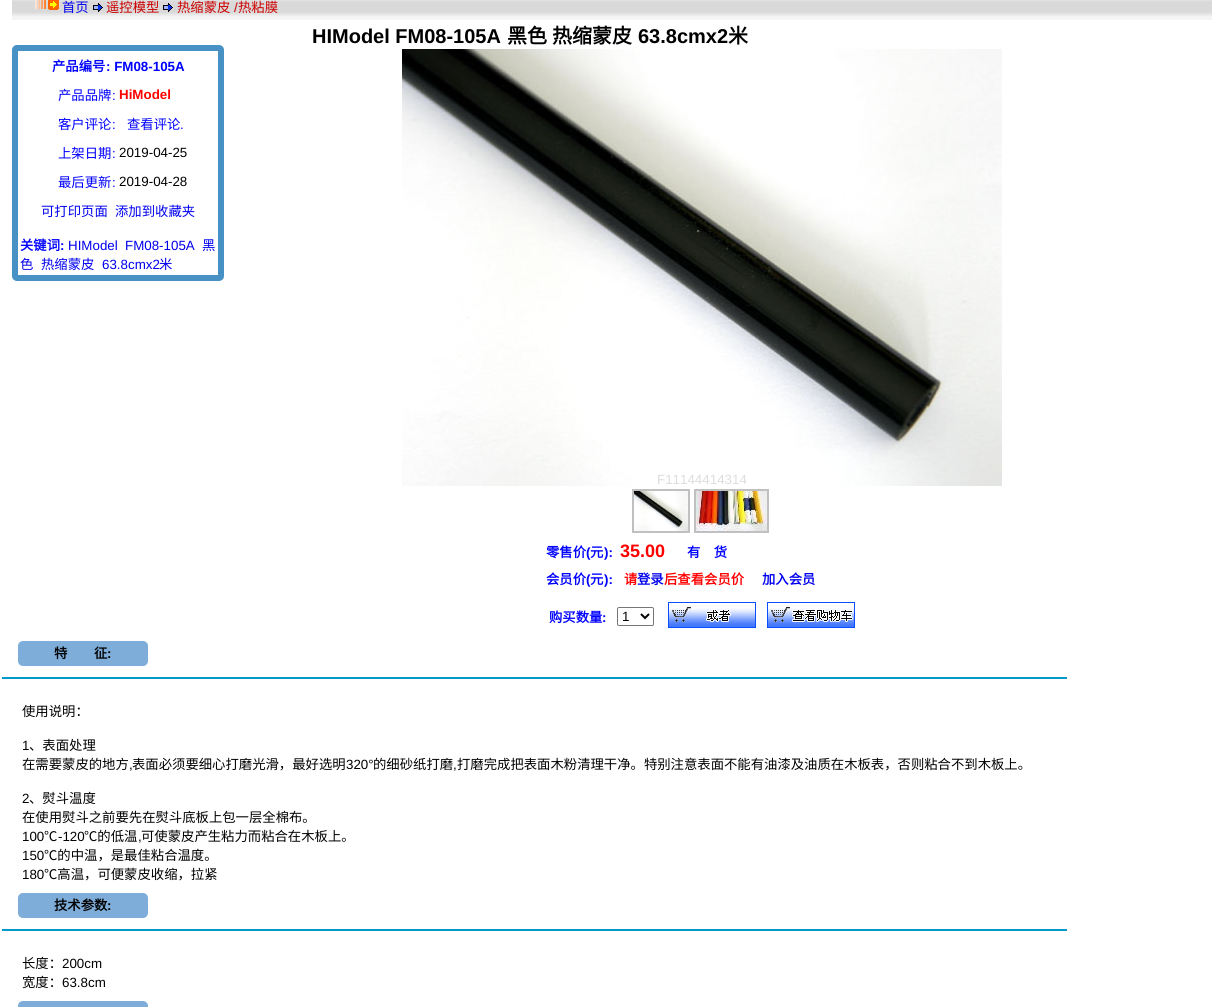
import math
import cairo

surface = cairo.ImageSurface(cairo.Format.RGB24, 1224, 1007)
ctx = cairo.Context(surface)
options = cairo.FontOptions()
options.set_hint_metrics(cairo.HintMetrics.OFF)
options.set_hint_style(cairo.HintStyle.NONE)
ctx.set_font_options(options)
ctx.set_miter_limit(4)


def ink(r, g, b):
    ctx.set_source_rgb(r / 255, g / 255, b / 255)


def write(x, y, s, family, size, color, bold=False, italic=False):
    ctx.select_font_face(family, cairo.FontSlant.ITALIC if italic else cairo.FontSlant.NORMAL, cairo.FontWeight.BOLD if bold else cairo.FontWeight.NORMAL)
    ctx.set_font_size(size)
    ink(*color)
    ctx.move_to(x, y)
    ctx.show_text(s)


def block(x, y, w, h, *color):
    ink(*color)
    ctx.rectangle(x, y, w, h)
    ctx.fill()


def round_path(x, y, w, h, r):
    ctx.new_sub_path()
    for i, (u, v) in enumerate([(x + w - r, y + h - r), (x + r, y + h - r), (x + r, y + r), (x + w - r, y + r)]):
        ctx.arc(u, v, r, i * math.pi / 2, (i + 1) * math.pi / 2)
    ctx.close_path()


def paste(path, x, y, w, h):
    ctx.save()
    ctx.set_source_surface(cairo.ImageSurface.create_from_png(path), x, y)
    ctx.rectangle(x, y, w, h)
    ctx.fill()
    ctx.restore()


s1 = dict(family="Noto Sans CJK SC", size=13.35, color=(0, 0, 238))
s2 = dict(family="Noto Sans CJK SC", size=13.35, color=(204, 0, 0))
s3 = dict(family="Liberation Sans", size=13.35, color=(204, 0, 0))
s4 = dict(family="Noto Sans CJK SC", size=13.35, color=(0, 0, 255), bold=True)
s5 = dict(family="Liberation Sans", size=13.35, color=(0, 0, 255), bold=True)
s6 = dict(family="Noto Sans CJK SC", size=13.35, color=(0, 0, 255))
s7 = dict(family="Liberation Sans", size=13.35, color=(0, 0, 255))
s8 = dict(family="Liberation Sans", size=13.35, color=(255, 0, 0), bold=True)
s9 = dict(family="Liberation Sans", size=13.35, color=(0, 0, 0))
s10 = dict(family="Liberation Sans", size=13.35, color=(0, 0, 238))
s11 = dict(family="Liberation Sans", size=20, color=(0, 0, 0), bold=True)
s12 = dict(family="Noto Sans CJK SC", size=20, color=(0, 0, 0), bold=True)
s13 = dict(family="Liberation Sans", size=13.35, color=(221, 221, 221))
s14 = dict(family="Liberation Sans", size=18, color=(255, 0, 0), bold=True)
s15 = dict(family="Noto Sans CJK SC", size=13.35, color=(255, 0, 0), bold=True)
s16 = dict(family="Noto Sans CJK SC", size=13.35, color=(0, 0, 238), bold=True)
s17 = dict(family="Noto Sans CJK SC", size=13.35, color=(0, 0, 0), bold=True)
s18 = dict(family="Liberation Sans", size=13.35, color=(0, 0, 0), bold=True)
s19 = dict(family="Noto Sans CJK SC", size=13.35, color=(0, 0, 0))

ink(255, 255, 255)
ctx.paint()
paste("pic1.png", 12, 0, 1200, 20)
paste("pic2.png", 35, 0, 24, 10)
write(62, 12, "首页", **s1)
paste("pic3.png", 93, 3, 10, 9)
write(106, 12, "遥控模型", **s2)
paste("pic3.png", 163, 3, 10, 9)
write(177, 12, "热缩蒙皮", **s2)
write(234, 12, "/", **s3)
write(238, 12, "热粘膜", **s2)
ink(71, 145, 197)
round_path(12, 45, 212, 236, 5)
ctx.fill()
block(18, 51, 200, 224, 255, 255, 255)
write(52, 71, "产品编号", **s4)
write(106, 71, ": FM08-105A", **s5)
write(58, 100, "产品品牌", **s6)
write(112, 100, ":", **s7)
write(119, 99, "HiModel", **s8)
write(58, 129, "客户评论", **s6)
write(112, 129, ":", **s7)
write(127, 129, "查看评论", **s6)
write(180, 129, ".", **s7)
write(58, 158, "上架日期", **s6)
write(112, 158, ":", **s7)
write(119, 157, "2019-04-25", **s9)
write(58, 187, "最后更新", **s6)
write(112, 187, ":", **s7)
write(119, 186, "2019-04-28", **s9)
write(41, 216, "可打印页面", **s1)
write(115, 216, "添加到收藏夹", **s1)
write(20, 250, "关键词", **s4)
write(60, 250, ":", **s5)
write(68, 250, "HIModel", **s10)
write(125, 250, "FM08-105A", **s10)
write(202, 250, "黑", **s1)
write(20, 269, "色", **s1)
write(41, 269, "热缩蒙皮", **s1)
write(102, 269, "63.8cmx2", **s10)
write(159, 269, "米", **s1)
write(312, 43, "HIModel FM08-105A", **s11)
write(507, 43, "黑色", **s12)
write(552, 43, "热缩蒙皮", **s12)
write(638, 43, "63.8cmx2", **s11)
write(728, 43, "米", **s12)
paste("pic4.png", 402, 49, 600, 437)
write(657, 484, "F11144414314", **s13)
ctx.rectangle(633, 490, 56, 42)
ink(192, 192, 192)
ctx.stroke()
ctx.rectangle(695, 490, 73, 42)
ctx.stroke()
paste("pic5.png", 634, 491, 54, 40)
paste("pic6.png", 696, 491, 71, 40)
write(546, 557, "零售价", **s4)
write(586, 557, "(", **s5)
write(590, 557, "元", **s4)
write(604, 557, "):", **s5)
write(620, 557, "35.00", **s14)
write(687, 557, "有　货", **s4)
write(546, 584, "会员价", **s4)
write(586, 584, "(", **s5)
write(590, 584, "元", **s4)
write(604, 584, "):", **s5)
write(624, 584, "请", **s15)
write(637, 584, "登录", **s16)
write(664, 584, "后查看会员价", **s15)
write(762, 584, "加入会员", **s16)
write(549, 622, "购买数量", **s4)
write(602, 622, ":", **s5)
round_path(617.5, 607.5, 36, 18, 1.5)
ink(118, 118, 118)
ctx.set_line_width(1)
ctx.stroke()
ctx.new_path()
ctx.move_to(641, 614)
ctx.line_to(645, 618)
ctx.line_to(649, 614)
ink(0, 0, 0)
ctx.set_line_width(2)
ctx.stroke()
write(622, 621, "1", **s9)
paste("pic7.png", 668, 602, 88, 26)
paste("pic8.png", 767, 602, 88, 26)
ink(125, 173, 216)
round_path(18, 641, 130, 25, 5)
ctx.fill()
write(54, 658, "特　　征", **s17)
write(107, 658, ":", **s18)
block(2, 677, 1065, 2, 0, 153, 204)
write(22, 716, "使用说明：", **s19)
write(22, 750, "1", **s9)
write(29, 750, "、表面处理", **s19)
write(22, 769, "在需要蒙皮的地方", **s19)
write(129, 769, ",", **s9)
write(132, 769, "表面必须要细心打磨光滑，最好选明", **s19)
write(346, 769, "320°", **s9)
write(373, 769, "的细砂纸打磨", **s19)
write(453, 769, ",", **s9)
write(457, 769, "打磨完成把表面木粉清理干净。特别注意表面不能有油漆及油质在木板表，否则粘合不到木板上。", **s19)
write(22, 803, "2", **s9)
write(29, 803, "、熨斗温度", **s19)
write(22, 822, "在使用熨斗之前要先在熨斗底板上包一层全棉布。", **s19)
write(22, 841, "100", **s9)
write(44, 841, "℃", **s19)
write(58, 841, "-120", **s9)
write(84, 841, "℃的低温", **s19)
write(138, 841, ",", **s9)
write(141, 841, "可使蒙皮产生粘力而粘合在木板上。", **s19)
write(22, 860, "150", **s9)
write(44, 860, "℃的中温，是最佳粘合温度。", **s19)
write(22, 879, "180", **s9)
write(44, 879, "℃高温，可便蒙皮收缩，拉紧", **s19)
ink(125, 173, 216)
round_path(18, 893, 130, 25, 5)
ctx.fill()
write(54, 910, "技术参数", **s17)
write(107, 910, ":", **s18)
block(2, 929, 1065, 2, 0, 153, 204)
write(22, 968, "长度：", **s19)
write(62, 968, "200cm", **s9)
write(22, 987, "宽度：", **s19)
write(62, 987, "63.8cm", **s9)
ink(125, 173, 216)
round_path(18, 1001, 130, 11, 5)
ctx.fill()
surface.write_to_png("screenshot.png")
